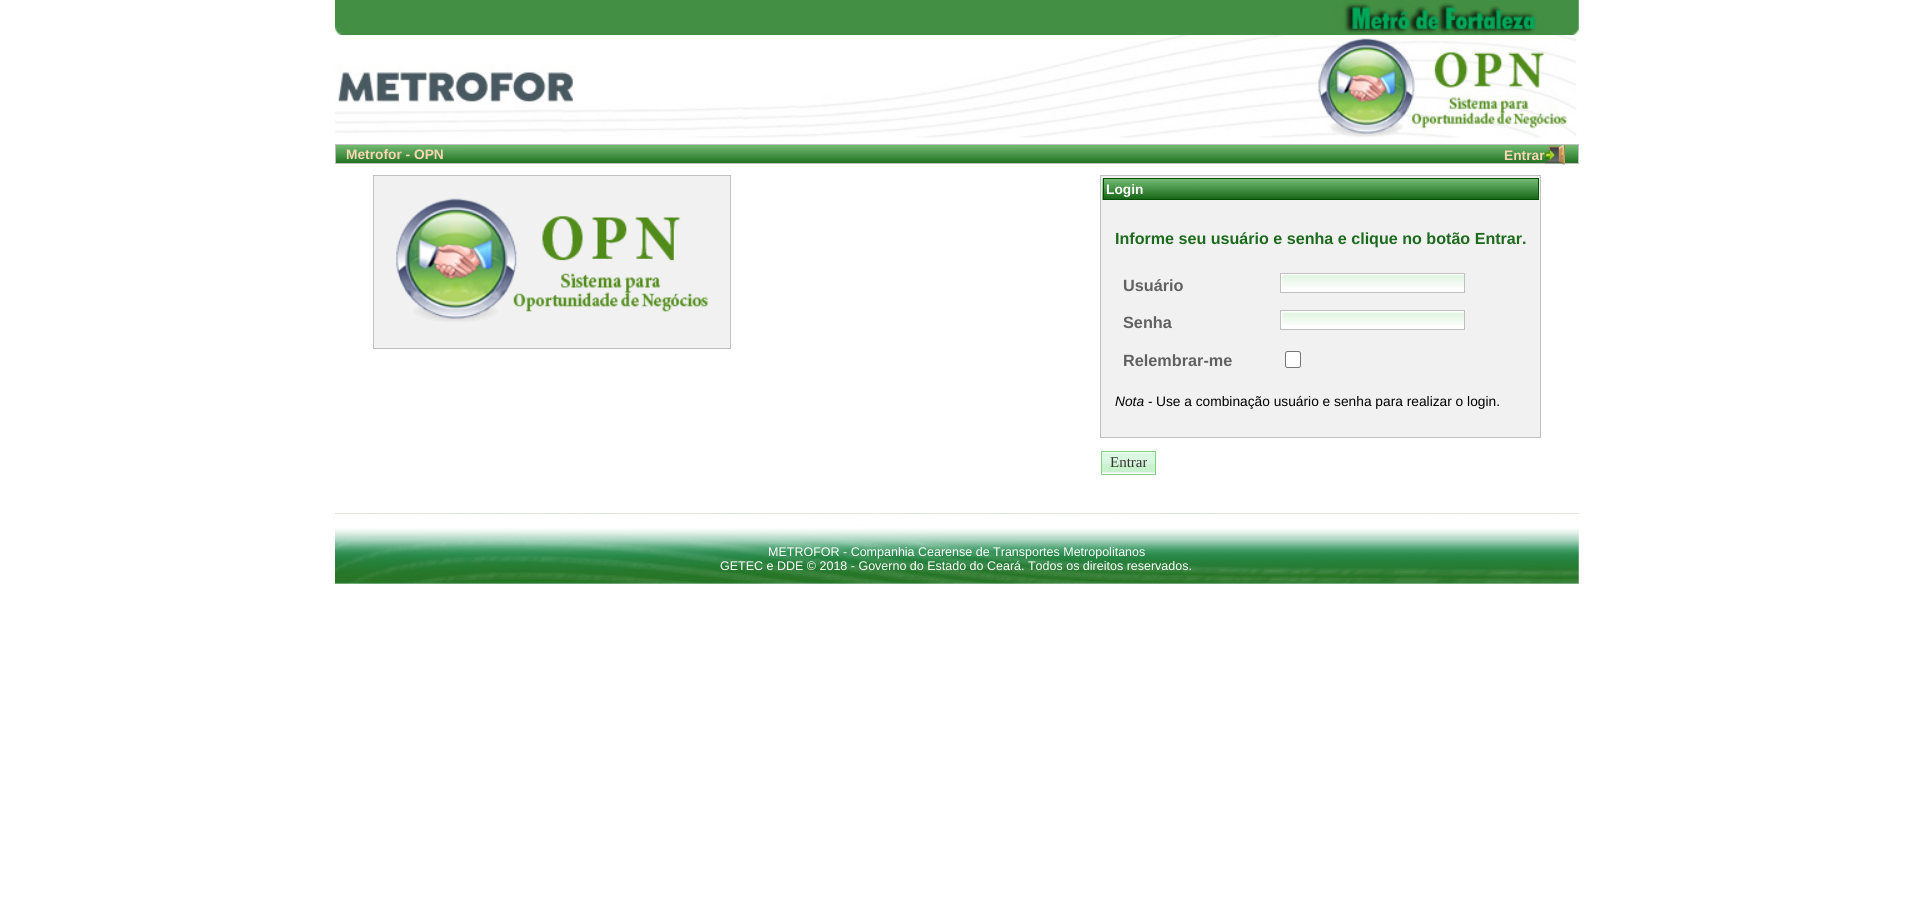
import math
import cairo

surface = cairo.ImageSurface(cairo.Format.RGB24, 1912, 898)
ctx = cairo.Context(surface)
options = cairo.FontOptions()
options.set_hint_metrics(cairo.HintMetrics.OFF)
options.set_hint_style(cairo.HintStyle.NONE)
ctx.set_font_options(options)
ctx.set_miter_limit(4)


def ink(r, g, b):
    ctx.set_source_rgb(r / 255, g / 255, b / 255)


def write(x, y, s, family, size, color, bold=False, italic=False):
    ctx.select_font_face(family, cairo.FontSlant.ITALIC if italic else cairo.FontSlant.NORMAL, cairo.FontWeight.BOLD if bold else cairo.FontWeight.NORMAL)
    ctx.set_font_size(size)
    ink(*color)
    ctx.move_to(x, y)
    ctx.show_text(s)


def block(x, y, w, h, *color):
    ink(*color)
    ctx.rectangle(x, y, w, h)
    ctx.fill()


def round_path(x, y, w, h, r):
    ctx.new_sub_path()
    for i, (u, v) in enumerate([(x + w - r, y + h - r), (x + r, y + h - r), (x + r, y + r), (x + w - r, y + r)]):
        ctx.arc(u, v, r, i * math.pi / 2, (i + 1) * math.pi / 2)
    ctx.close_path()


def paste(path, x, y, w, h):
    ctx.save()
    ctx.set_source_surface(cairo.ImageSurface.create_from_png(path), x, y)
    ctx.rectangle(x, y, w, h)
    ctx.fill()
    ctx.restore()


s1 = dict(family="Liberation Sans", size=13.75, color=(250, 214, 178), bold=True)
s2 = dict(family="Liberation Sans", size=13.75, color=(255, 255, 255), bold=True)
s3 = dict(family="Liberation Sans", size=16.1, color=(28, 106, 28), bold=True)
s4 = dict(family="Liberation Sans", size=16.25, color=(97, 97, 97), bold=True)
s5 = dict(family="Liberation Sans", size=13.75, color=(0, 0, 0), italic=True)
s6 = dict(family="Liberation Sans", size=13.75, color=(0, 0, 0))
s7 = dict(family="Liberation Serif", size=15, color=(51, 51, 51))
s8 = dict(family="Liberation Sans", size=12.5, color=(255, 255, 255))

ink(255, 255, 255)
ctx.paint()
paste("pic1.png", 335, 0, 1244, 35)
paste("pic2.png", 335, 35, 1242, 103)
paste("pic3.png", 336, 145, 1242, 18)
block(335, 144, 1244, 1, 192, 192, 192)
block(1578, 144, 1, 20, 192, 192, 192)
block(335, 163, 1244, 1, 192, 192, 192)
block(335, 144, 1, 20, 192, 192, 192)
write(346, 159, "Metrofor - OPN", **s1)
write(1504, 160, "Entrar", **s1)
paste("pic4.png", 1545, 145, 20, 20)
ink(241, 241, 241)
ctx.rectangle(373.5, 175.5, 357, 173)
ctx.fill_preserve()
ink(192, 192, 192)
ctx.set_line_width(1)
ctx.stroke()
paste("pic5.png", 396, 198, 312, 124)
ink(241, 241, 241)
ctx.rectangle(1100.5, 175.5, 440, 262)
ctx.fill_preserve()
ink(192, 192, 192)
ctx.stroke()
paste("pic6.png", 1102, 178, 436, 22)
ctx.rectangle(1103.5, 178.5, 435, 21)
ink(0, 80, 0)
ctx.stroke()
write(1106, 194, "Login", **s2)
write(1115, 244, "Informe seu usuário e senha e clique no botão Entrar.", **s3)
write(1123, 291, "Usuário", **s4)
block(1281, 274, 183, 18, 255, 255, 255)
paste("pic7.png", 1282, 275, 182, 13)
ctx.rectangle(1280.5, 273.5, 184, 19)
ink(192, 192, 192)
ctx.stroke()
write(1123, 328, "Senha", **s4)
block(1281, 311, 183, 18, 255, 255, 255)
paste("pic8.png", 1282, 312, 182, 13)
ctx.rectangle(1280.5, 310.5, 184, 19)
ink(192, 192, 192)
ctx.stroke()
write(1123, 366, "Relembrar-me", **s4)
ink(255, 255, 255)
round_path(1285.5, 351.5, 15, 16, 2)
ctx.fill_preserve()
ink(118, 118, 118)
ctx.stroke()
write(1115, 406, "Nota -", **s5)
write(1156, 406, "Use a combinação usuário e senha para realizar o login.", **s6)
paste("pic9.png", 1102, 452, 55, 21)
ctx.rectangle(1101.5, 451.5, 54, 23)
ink(132, 208, 132)
ctx.stroke()
write(1110, 467, "Entrar", **s7)
paste("pic10.png", 335, 513, 1244, 71)
write(768, 556, "METROFOR - Companhia Cearense de Transportes Metropolitanos", **s8)
write(720, 570, "GETEC e DDE © 2018 - Governo do Estado do Ceará. Todos os direitos reservados.", **s8)
surface.write_to_png("screenshot.png")
